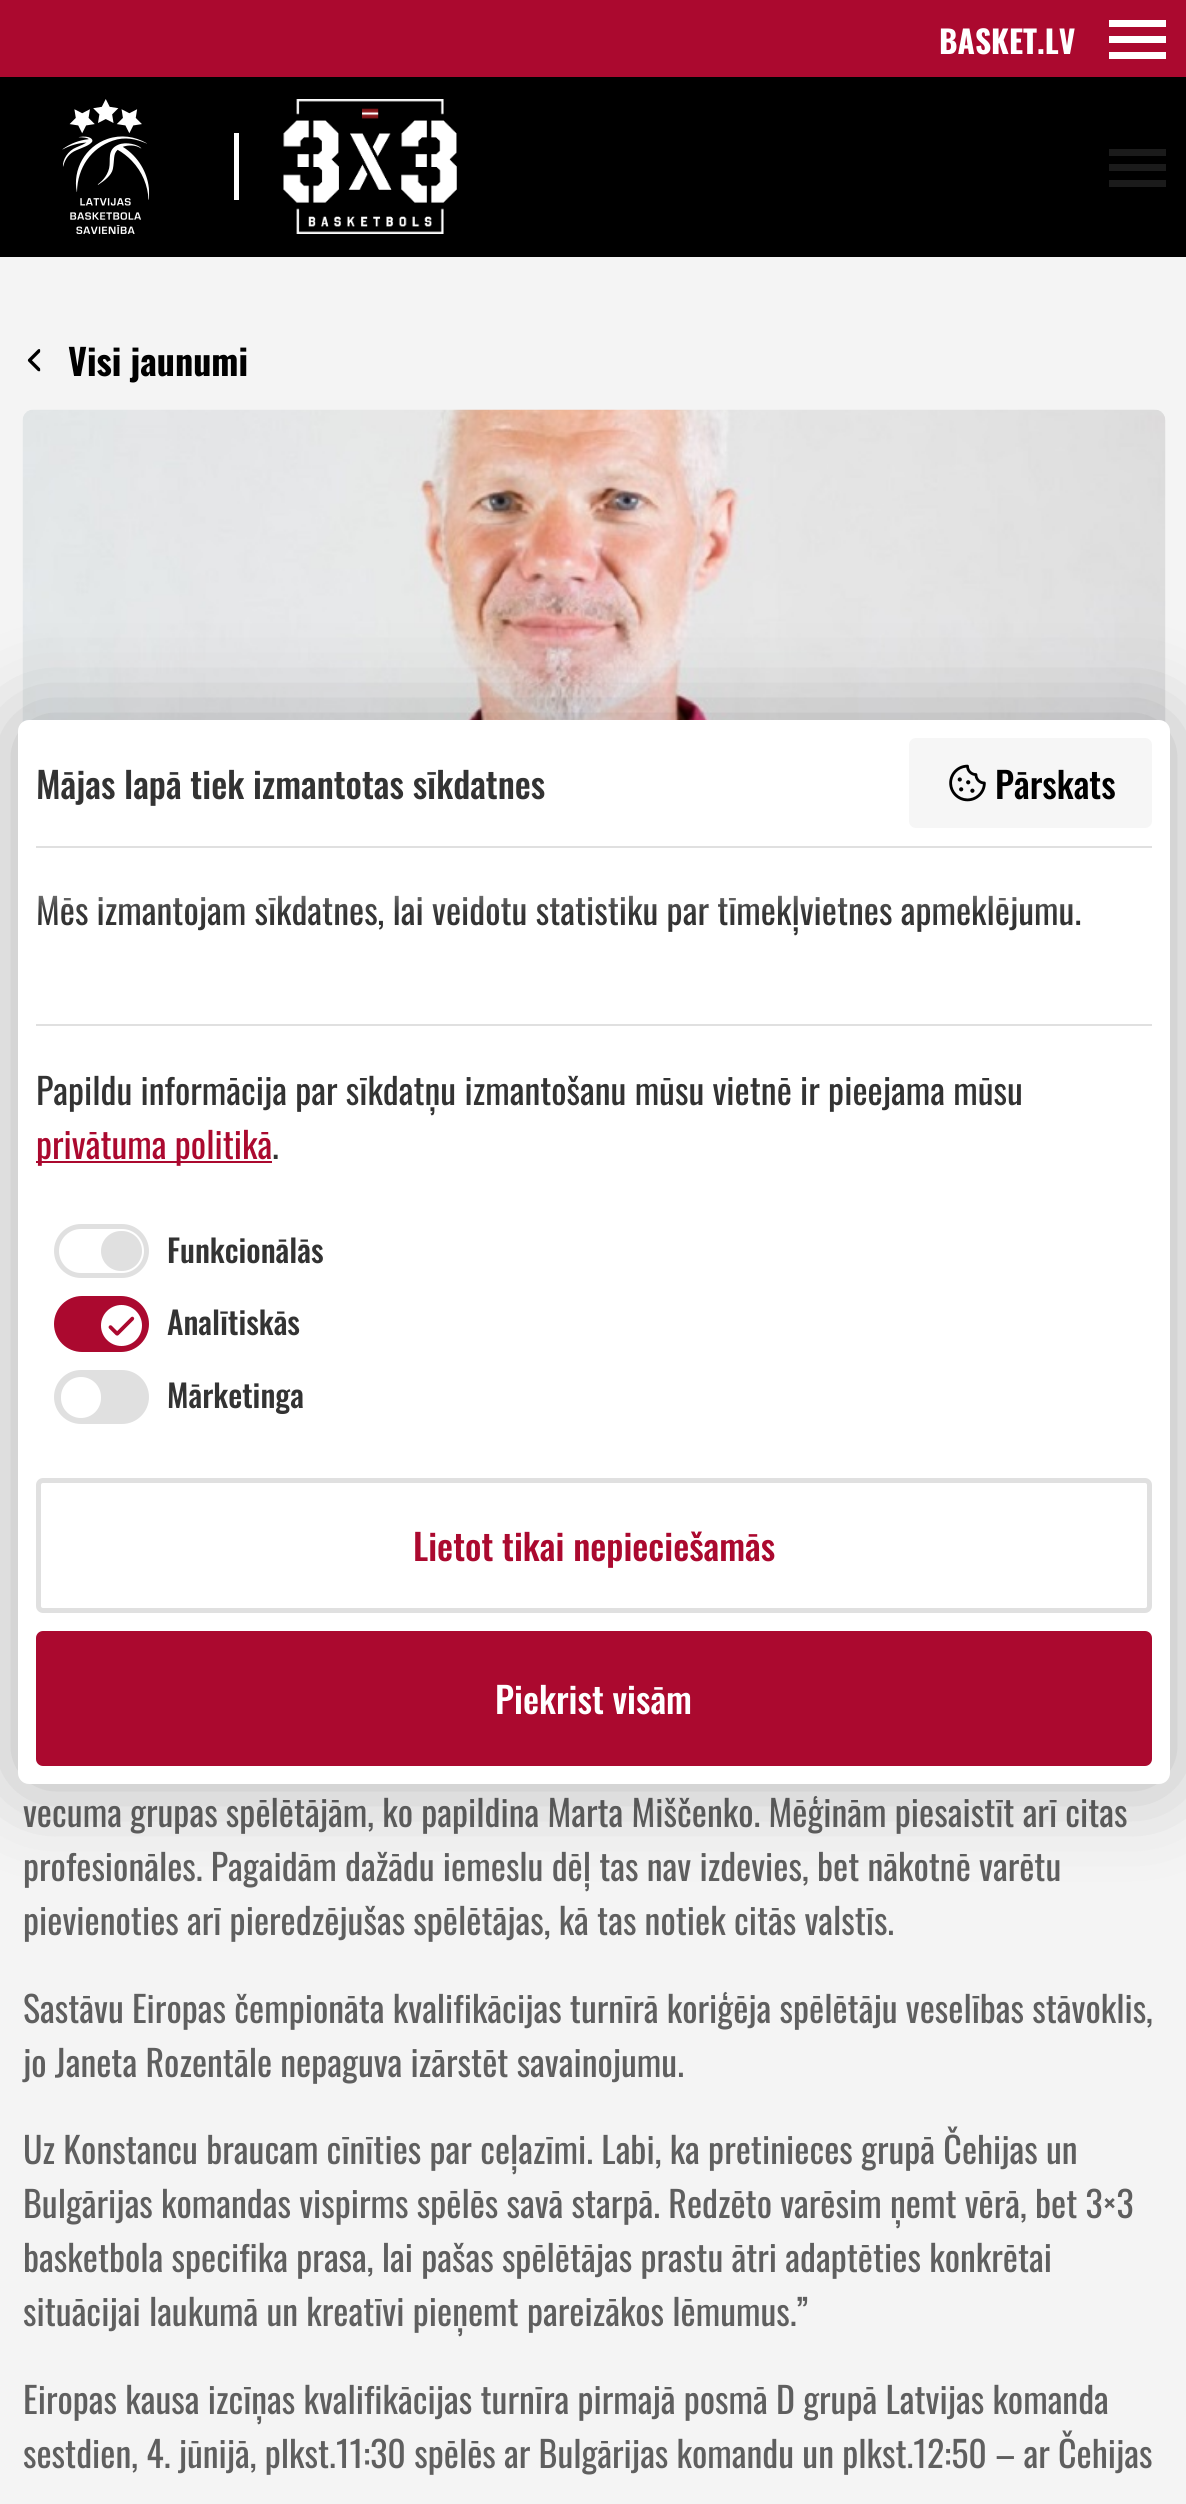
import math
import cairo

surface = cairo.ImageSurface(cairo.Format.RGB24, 1186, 2504)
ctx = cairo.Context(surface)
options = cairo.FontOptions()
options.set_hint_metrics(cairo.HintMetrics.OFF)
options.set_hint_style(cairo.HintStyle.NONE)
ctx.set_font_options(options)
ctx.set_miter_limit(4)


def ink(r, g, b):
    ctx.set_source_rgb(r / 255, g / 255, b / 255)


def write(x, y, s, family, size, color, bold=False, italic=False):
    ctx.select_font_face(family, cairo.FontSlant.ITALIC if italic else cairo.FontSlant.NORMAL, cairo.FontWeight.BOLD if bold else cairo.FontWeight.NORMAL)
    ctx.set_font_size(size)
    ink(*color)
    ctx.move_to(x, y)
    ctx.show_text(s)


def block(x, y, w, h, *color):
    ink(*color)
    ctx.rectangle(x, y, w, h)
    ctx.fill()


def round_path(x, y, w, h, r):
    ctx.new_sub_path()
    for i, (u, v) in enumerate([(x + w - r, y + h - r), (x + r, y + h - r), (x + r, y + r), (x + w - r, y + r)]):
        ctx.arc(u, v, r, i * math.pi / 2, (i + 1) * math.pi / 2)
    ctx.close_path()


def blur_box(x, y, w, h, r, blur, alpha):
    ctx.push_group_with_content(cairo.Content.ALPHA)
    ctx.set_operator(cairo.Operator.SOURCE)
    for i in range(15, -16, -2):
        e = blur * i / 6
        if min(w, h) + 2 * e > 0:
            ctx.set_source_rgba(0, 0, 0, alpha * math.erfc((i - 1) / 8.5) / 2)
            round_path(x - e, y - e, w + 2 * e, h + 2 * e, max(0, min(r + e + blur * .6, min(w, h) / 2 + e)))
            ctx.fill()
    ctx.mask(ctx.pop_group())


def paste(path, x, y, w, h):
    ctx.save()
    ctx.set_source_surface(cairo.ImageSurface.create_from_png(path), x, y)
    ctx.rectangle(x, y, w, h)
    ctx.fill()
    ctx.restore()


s1 = dict(family="Oswald", size=31.5, color=(255, 255, 255), bold=True)
s2 = dict(family="Oswald", size=36, color=(0, 0, 0), bold=True)
s3 = dict(family="Oswald", size=36, color=(95, 95, 95))
s4 = dict(family="Oswald Medium", size=36, color=(51, 51, 51))
s5 = dict(family="Oswald Medium", size=36, color=(0, 0, 0))
s6 = dict(family="Oswald", size=36, color=(51, 51, 51))
s7 = dict(family="Oswald", size=36, color=(171, 9, 47))
s8 = dict(family="Oswald Medium", size=31.5, color=(51, 51, 51))
s9 = dict(family="Oswald Medium", size=36, color=(171, 9, 47))
s10 = dict(family="Oswald Medium", size=36, color=(255, 255, 255))

ink(244, 244, 244)
ctx.paint()
block(0, 0, 1186, 77, 171, 9, 47)
write(939, 54, "BASKET.LV", **s1)
block(1109, 20, 57, 7, 255, 255, 255)
block(1109, 36, 57, 7, 255, 255, 255)
block(1109, 52, 57, 7, 255, 255, 255)
block(0, 77, 1186, 180, 0, 0, 0)
paste("pic1.png", 62, 99, 88, 135)
block(234, 133, 5, 67, 255, 255, 255)
paste("pic2.png", 283, 99, 174, 135)
block(1109, 149, 57, 7, 27, 27, 27)
block(1109, 164, 57, 7, 27, 27, 27)
block(1109, 180, 57, 7, 27, 27, 27)
paste("pic3.png", 27, 349, 14, 23)
write(68, 376, "Visi jaunumi", **s2)
paste("pic4.png", 22, 409, 1144, 314)
write(23, 1827, "vecuma grupas spēlētājām, ko papildina Marta Miščenko. Mēģinām piesaistīt arī citas", **s3)
write(23, 1881, "profesionāles. Pagaidām dažādu iemeslu dēļ tas nav izdevies, bet nākotnē varētu", **s3)
write(23, 1935, "pievienoties arī pieredzējušas spēlētājas, kā tas notiek citās valstīs.", **s3)
write(23, 2023, "Sastāvu Eiropas čempionāta kvalifikācijas turnīrā koriģēja spēlētāju veselības stāvoklis,", **s3)
write(23, 2077, "jo Janeta Rozentāle nepaguva izārstēt savainojumu.", **s3)
write(23, 2164, "Uz Konstancu braucam cīnīties par ceļazīmi. Labi, ka pretinieces grupā Čehijas un", **s3)
write(23, 2218, "Bulgārijas komandas vispirms spēlēs savā starpā. Redzēto varēsim ņemt vērā, bet 3×3", **s3)
write(23, 2272, "basketbola specifika prasa, lai pašas spēlētājas prastu ātri adaptēties konkrētai", **s3)
write(23, 2326, "situācijai laukumā un kreatīvi pieņemt pareizākos lēmumus.”", **s3)
write(23, 2414, "Eiropas kausa izcīņas kvalifikācijas turnīra pirmajā posmā D grupā Latvijas komanda", **s3)
write(23, 2468, "sestdien, 4. jūnijā, plkst.11:30 spēlēs ar Bulgārijas komandu un plkst.12:50 – ar Čehijas", **s3)
ink(0, 0, 0)
blur_box(18, 720, 1152, 1064, 11, 45, 0.25)
ink(255, 255, 255)
round_path(18, 720, 1152, 1064, 11)
ctx.fill()
write(36, 799, "Mājas lapā tiek izmantotas sīkdatnes", **s4)
ink(246, 246, 246)
round_path(909, 738, 243, 90, 7)
ctx.fill()
paste("pic5.png", 949, 764, 37, 38)
write(995, 799, "Pārskats", **s5)
block(36, 846, 1116, 2, 224, 224, 224)
block(36, 1024, 1116, 2, 224, 224, 224)
write(36, 925, "Mēs izmantojam sīkdatnes, lai veidotu statistiku par tīmekļvietnes apmeklējumu.", **s6)
gradient = cairo.LinearGradient(594, 914, 594, 846)
gradient.add_color_stop_rgba(0, 1, 1, 1, 0)
gradient.add_color_stop_rgba(1, 1, 1, 1, 1)
ctx.set_source(gradient)
ctx.rectangle(38, 895, 1035, 18)
ctx.fill()
write(36, 1105, "Papildu informācija par sīkdatņu izmantošanu mūsu vietnē ir pieejama mūsu", **s6)
block(36, 1161, 236, 2, 171, 9, 47)
write(36, 1159, "privātuma politikā", **s7)
write(272, 1159, ".", **s6)
round_path(56.5, 1226.5, 90, 49, 24.5)
ink(224, 224, 224)
ctx.set_line_width(5)
ctx.stroke()
round_path(101, 1231, 41, 40, 20)
ctx.fill()
write(167, 1263, "Funkcionālās", **s8)
ink(171, 9, 47)
round_path(56.5, 1298.5, 90, 51, 25.5)
ctx.fill_preserve()
ctx.stroke()
ink(255, 255, 255)
ctx.arc(121.5, 1325.5, 20.5, 0, 2 * math.pi)
ctx.fill()
paste("pic6.png", 108, 1316, 27, 20)
write(167, 1335, "Analītiskās", **s8)
ink(224, 224, 224)
round_path(56.5, 1372.5, 90, 49, 24.5)
ctx.fill_preserve()
ctx.stroke()
ink(255, 255, 255)
round_path(61, 1377, 40, 41, 20)
ctx.fill()
write(167, 1408, "Mārketinga", **s8)
round_path(38.5, 1480.5, 1111, 130, 4.5)
ink(224, 224, 224)
ctx.stroke()
write(413, 1561, "Lietot tikai nepieciešamās", **s9)
round_path(38.5, 1633.5, 1111, 130, 4.5)
ctx.fill_preserve()
ctx.stroke()
write(495, 1714, "Piekrist visām", **s10)
surface.write_to_png("screenshot.png")
